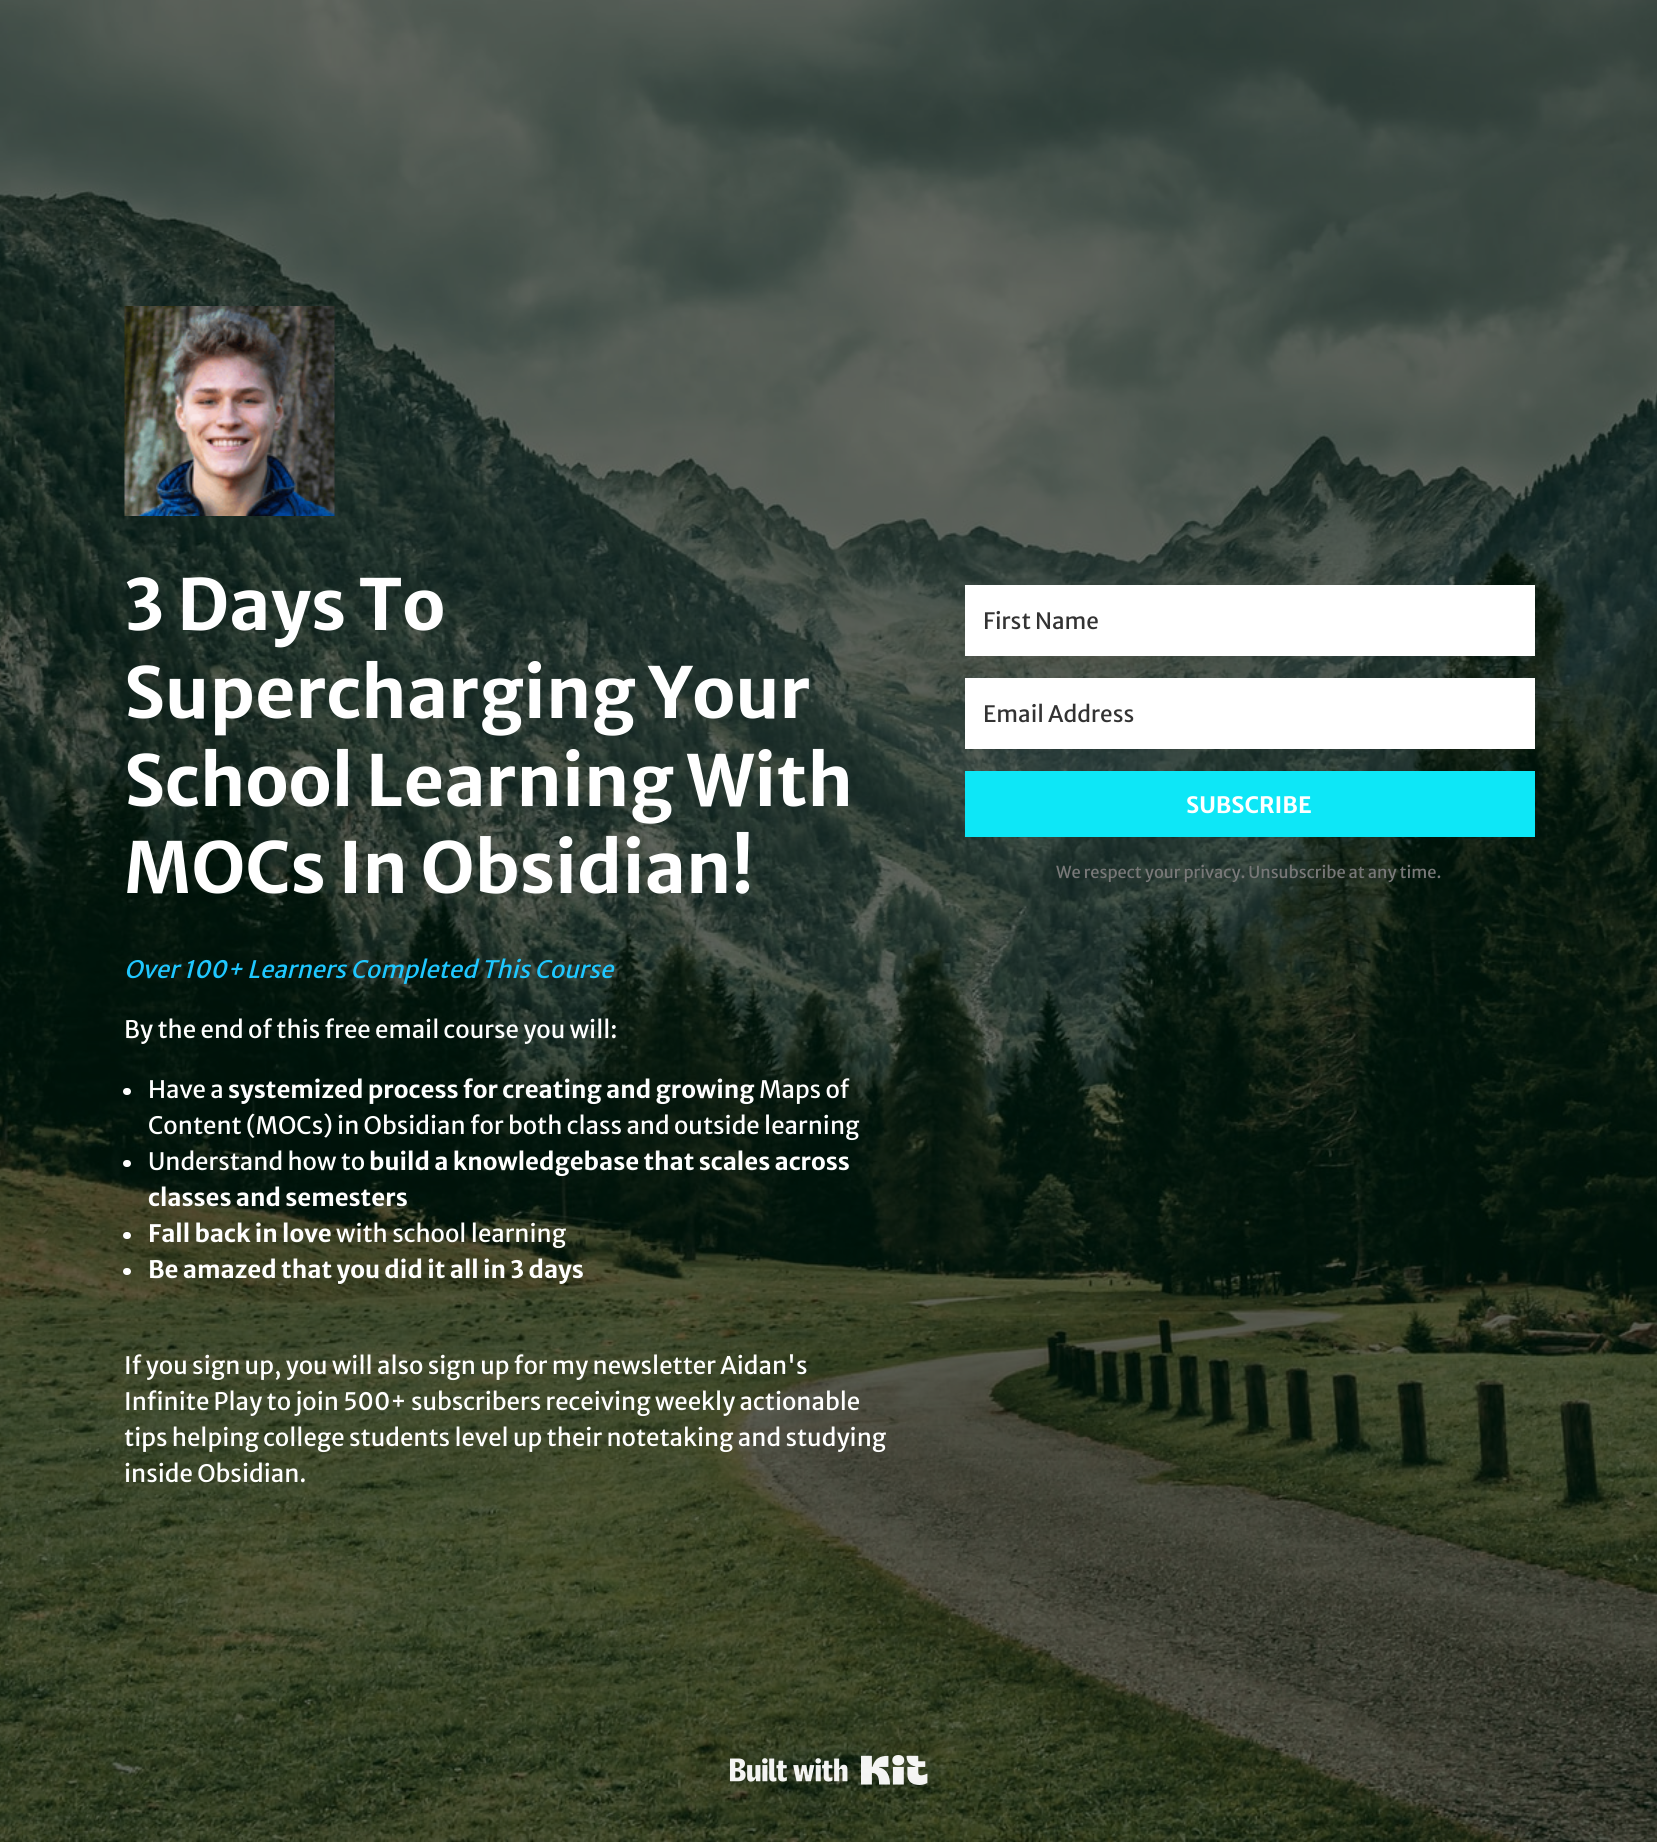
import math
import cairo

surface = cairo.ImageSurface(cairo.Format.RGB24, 1657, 1842)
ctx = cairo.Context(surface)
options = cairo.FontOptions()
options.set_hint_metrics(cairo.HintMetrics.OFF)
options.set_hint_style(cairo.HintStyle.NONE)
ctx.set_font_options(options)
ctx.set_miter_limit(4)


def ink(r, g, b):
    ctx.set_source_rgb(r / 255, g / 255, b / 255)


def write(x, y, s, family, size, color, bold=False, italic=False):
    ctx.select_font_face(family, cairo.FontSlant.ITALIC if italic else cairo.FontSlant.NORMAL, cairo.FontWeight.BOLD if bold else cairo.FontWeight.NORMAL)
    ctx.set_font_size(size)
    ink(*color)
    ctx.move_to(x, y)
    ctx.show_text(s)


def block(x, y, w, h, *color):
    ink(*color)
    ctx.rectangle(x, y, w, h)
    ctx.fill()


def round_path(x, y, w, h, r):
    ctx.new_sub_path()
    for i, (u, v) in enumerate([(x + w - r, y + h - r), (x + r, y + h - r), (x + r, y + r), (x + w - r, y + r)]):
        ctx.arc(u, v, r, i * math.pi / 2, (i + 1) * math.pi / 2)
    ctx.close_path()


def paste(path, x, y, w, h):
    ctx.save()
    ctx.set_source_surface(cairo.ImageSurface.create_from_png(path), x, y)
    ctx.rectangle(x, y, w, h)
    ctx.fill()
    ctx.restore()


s1 = dict(family="Merriweather Sans", size=70.25, color=(255, 255, 255), bold=True)
s2 = dict(family="Merriweather Sans", size=24, color=(31, 199, 255), italic=True)
s3 = dict(family="Merriweather Sans", size=24, color=(255, 255, 255))
s4 = dict(family="Merriweather Sans", size=24, color=(255, 255, 255), bold=True)
s5 = dict(family="Merriweather Sans", size=22.5, color=(51, 51, 51))
s6 = dict(family="Merriweather Sans", size=22.5, color=(255, 255, 255), bold=True)
s7 = dict(family="Merriweather Sans", size=16.5, color=(120, 120, 120))

ink(0, 17, 1)
ctx.paint()
paste("pic1.png", 0, 0, 1657, 1842)
paste("pic2.png", 124, 306, 211, 210)
write(124, 630, "3 Days To", **s1)
write(124, 718, "Supercharging Your", **s1)
write(124, 806, "School Learning With", **s1)
write(124, 893, "MOCs In Obsidian!", **s1)
write(124, 978, "Over 100+ Learners Completed This Course", **s2)
write(124, 1038, "By the end of this free email course you will:", **s3)
round_path(123, 1088, 8, 7, 3.5)
ctx.fill()
write(148, 1098, "Have a", **s3)
write(228, 1098, "systemized process for creating and growing", **s4)
write(759, 1098, "Maps of", **s3)
write(148, 1134, "Content (MOCs) in Obsidian for both class and outside learning", **s3)
round_path(123, 1160, 8, 7, 3.5)
ctx.fill()
write(148, 1170, "Understand how to", **s3)
write(369, 1170, "build a knowledgebase that scales across", **s4)
write(148, 1206, "classes and semesters", **s4)
round_path(123, 1232, 8, 7, 3.5)
ctx.fill()
write(148, 1242, "Fall back in love", **s4)
write(336, 1242, "with school learning", **s3)
round_path(123, 1268, 8, 7, 3.5)
ctx.fill()
write(148, 1278, "Be amazed that you did it all in 3 days", **s4)
write(124, 1374, "If you sign up, you will also sign up for my newsletter Aidan's", **s3)
write(124, 1410, "Infinite Play to join 500+ subscribers receiving weekly actionable", **s3)
write(124, 1446, "tips helping college students level up their notetaking and studying", **s3)
write(124, 1482, "inside Obsidian.", **s3)
block(965, 585, 570, 71, 255, 255, 255)
write(983, 629, "First Name", **s5)
block(965, 678, 570, 71, 255, 255, 255)
write(983, 722, "Email Address", **s5)
block(965, 771, 570, 66, 13, 231, 247)
write(1186, 813, "SUBSCRIBE", **s6)
write(1056, 878, "We respect your privacy. Unsubscribe at any time.", **s7)
paste("pic3.png", 729, 1755, 199, 30)
surface.write_to_png("screenshot.png")
